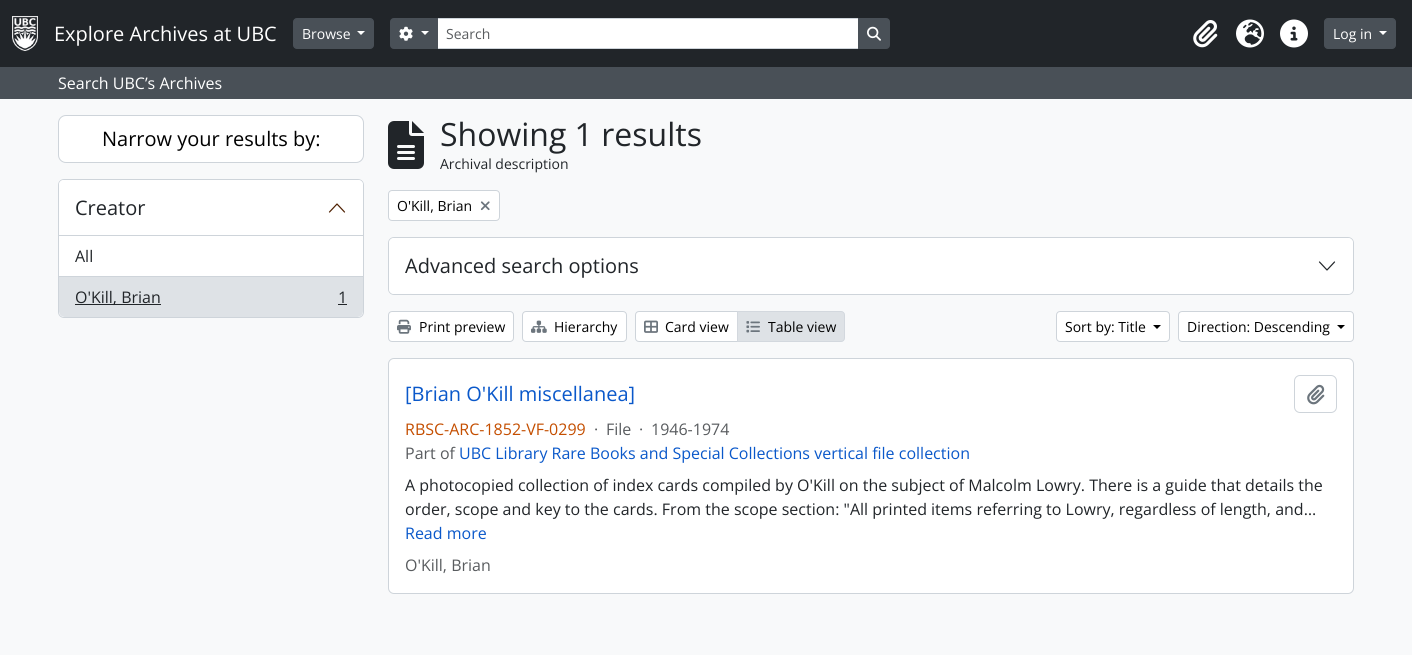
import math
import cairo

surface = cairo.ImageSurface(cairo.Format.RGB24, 1412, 655)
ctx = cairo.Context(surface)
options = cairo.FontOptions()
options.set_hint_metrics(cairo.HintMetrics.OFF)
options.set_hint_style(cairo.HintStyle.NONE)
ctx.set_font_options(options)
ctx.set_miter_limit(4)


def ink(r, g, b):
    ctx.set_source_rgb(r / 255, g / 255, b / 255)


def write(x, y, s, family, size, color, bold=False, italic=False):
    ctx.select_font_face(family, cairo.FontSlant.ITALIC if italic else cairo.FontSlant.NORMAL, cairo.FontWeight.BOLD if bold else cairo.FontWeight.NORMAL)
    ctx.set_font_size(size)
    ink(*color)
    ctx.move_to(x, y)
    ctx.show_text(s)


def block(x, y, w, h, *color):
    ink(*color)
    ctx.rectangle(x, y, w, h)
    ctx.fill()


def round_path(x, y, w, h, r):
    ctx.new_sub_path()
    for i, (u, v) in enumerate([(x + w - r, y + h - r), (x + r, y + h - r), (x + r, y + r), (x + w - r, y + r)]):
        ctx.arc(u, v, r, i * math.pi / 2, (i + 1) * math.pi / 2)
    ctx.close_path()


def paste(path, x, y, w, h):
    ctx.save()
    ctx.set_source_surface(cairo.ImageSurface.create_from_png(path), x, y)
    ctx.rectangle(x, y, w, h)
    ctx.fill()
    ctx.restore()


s1 = dict(family="Open Sans", size=20, color=(255, 255, 255))
s2 = dict(family="Open Sans", size=14, color=(255, 255, 255))
s3 = dict(family="Open Sans", size=14, color=(89, 92, 95))
s4 = dict(family="Open Sans", size=16, color=(255, 255, 255))
s5 = dict(family="Open Sans", size=20, color=(0, 0, 0))
s6 = dict(family="Open Sans", size=20, color=(33, 37, 41))
s7 = dict(family="Open Sans", size=16, color=(33, 37, 41))
s8 = dict(family="Open Sans", size=32, color=(33, 37, 41))
s9 = dict(family="Open Sans", size=14, color=(33, 37, 41))
s10 = dict(family="Open Sans", size=14, color=(0, 0, 0))
s11 = dict(family="Open Sans", size=20, color=(10, 88, 202))
s12 = dict(family="Open Sans", size=16, color=(196, 78, 0))
s13 = dict(family="Open Sans", size=16, color=(89, 92, 95))
s14 = dict(family="Open Sans", size=16, color=(10, 88, 202))

ink(248, 249, 250)
ctx.paint()
block(0, 0, 1412, 67, 33, 37, 41)
paste("pic1.png", 12, 16, 26, 35)
write(54, 41, "Explore Archives at UBC", **s1)
ink(73, 80, 87)
round_path(293.5, 18.5, 80, 30, 3.5)
ctx.fill_preserve()
ctx.set_line_width(1)
ctx.stroke()
write(302, 39, "Browse", **s2)
ctx.new_path()
ctx.move_to(357, 31)
ctx.line_to(365, 31)
ctx.line_to(361, 35)
ctx.close_path()
ctx.fill()
ctx.rectangle(437.5, 18.5, 421, 30)
ctx.fill_preserve()
ink(206, 212, 218)
ctx.stroke()
ink(73, 80, 87)
ctx.new_path()
ctx.move_to(394, 18.5)
ctx.line_to(437.5, 18.5)
ctx.line_to(437.5, 48.5)
ctx.line_to(394, 48.5)
ctx.curve_to(392, 48.5, 390.5, 47, 390.5, 45)
ctx.line_to(390.5, 22)
ctx.curve_to(390.5, 20, 392, 18.5, 394, 18.5)
ctx.close_path()
ctx.fill_preserve()
ctx.stroke()
paste("pic2.png", 399, 26, 14, 15)
ink(255, 255, 255)
ctx.new_path()
ctx.move_to(421, 31)
ctx.line_to(429, 31)
ctx.line_to(425, 35)
ctx.close_path()
ctx.fill()
write(446, 39, "Search", **s3)
ink(73, 80, 87)
ctx.new_path()
ctx.move_to(858.5, 18.5)
ctx.line_to(886, 18.5)
ctx.curve_to(888, 18.5, 889.5, 20, 889.5, 22)
ctx.line_to(889.5, 45)
ctx.curve_to(889.5, 47, 888, 48.5, 886, 48.5)
ctx.line_to(858.5, 48.5)
ctx.close_path()
ctx.fill_preserve()
ctx.stroke()
paste("pic3.png", 867, 26, 14, 15)
paste("pic4.png", 1193, 20, 25, 28)
paste("pic5.png", 1236, 19, 28, 29)
paste("pic6.png", 1280, 19, 28, 29)
round_path(1324.5, 18.5, 71, 30, 3.5)
ctx.fill_preserve()
ctx.stroke()
write(1333, 39, "Log in", **s2)
ctx.new_path()
ctx.move_to(1379, 31)
ctx.line_to(1387, 31)
ctx.line_to(1383, 35)
ctx.close_path()
ctx.fill()
block(0, 67, 1412, 32, 73, 80, 87)
write(58, 89, "Search UBC’s Archives", **s4)
round_path(58.5, 115.5, 305, 47, 7.5)
ctx.fill_preserve()
ink(206, 212, 218)
ctx.stroke()
write(102, 146, "Narrow your results by:", **s5)
ink(255, 255, 255)
round_path(58.5, 179.5, 305, 138, 5.5)
ctx.fill_preserve()
ink(206, 212, 218)
ctx.stroke()
ink(255, 255, 255)
ctx.new_path()
ctx.move_to(64, 180)
ctx.line_to(358, 180)
ctx.curve_to(361, 180, 363, 182, 363, 185)
ctx.line_to(363, 236)
ctx.line_to(59, 236)
ctx.line_to(59, 185)
ctx.curve_to(59, 182, 61, 180, 64, 180)
ctx.close_path()
ctx.fill()
block(59, 235, 304, 1, 206, 212, 218)
write(75, 215, "Creator", **s6)
ctx.new_path()
ctx.move_to(344.5, 212)
ctx.line_to(337, 204)
ctx.line_to(329.5, 212)
ink(78, 31, 0)
ctx.set_line_width(1.2)
ctx.set_line_cap(cairo.LineCap.ROUND)
ctx.set_line_join(cairo.LineJoin.ROUND)
ctx.stroke()
block(59, 276, 304, 1, 206, 212, 218)
write(75, 262, "All", **s7)
ink(222, 226, 230)
ctx.new_path()
ctx.move_to(59, 277)
ctx.line_to(363, 277)
ctx.line_to(363, 311)
ctx.curve_to(363, 314.5, 360.5, 317, 357, 317)
ctx.line_to(65, 317)
ctx.curve_to(61.5, 317, 59, 314.5, 59, 311)
ctx.close_path()
ctx.fill()
block(75, 304, 86, 1, 33, 37, 41)
write(75, 303, "O'Kill, Brian", **s7)
write(338, 303, "1", **s7)
block(338, 304, 9, 1, 33, 37, 41)
paste("pic7.png", 388, 121, 36, 48)
write(440, 146, "Showing 1 results", **s8)
write(440, 169, "Archival description", **s9)
ink(255, 255, 255)
round_path(388.5, 190.5, 111, 30, 3.5)
ctx.fill_preserve()
ink(206, 212, 218)
ctx.set_line_width(1)
ctx.set_line_cap(cairo.LineCap.BUTT)
ctx.set_line_join(cairo.LineJoin.MITER)
ctx.stroke()
write(397, 211, "O'Kill, Brian", **s10)
paste("pic8.png", 480, 201, 10, 10)
round_path(388.5, 237.5, 965, 57, 5.5)
ink(206, 212, 218)
ctx.stroke()
ink(255, 255, 255)
round_path(389, 238, 964, 56, 5)
ctx.fill()
write(405, 273, "Advanced search options", **s6)
ctx.new_path()
ctx.move_to(1319.5, 262)
ctx.line_to(1327, 270)
ctx.line_to(1334.5, 262)
ctx.set_line_width(1.2)
ctx.set_line_cap(cairo.LineCap.ROUND)
ctx.set_line_join(cairo.LineJoin.ROUND)
ctx.stroke()
ink(255, 255, 255)
round_path(388.5, 311.5, 125, 30, 3.5)
ctx.fill_preserve()
ink(206, 212, 218)
ctx.set_line_width(1)
ctx.set_line_cap(cairo.LineCap.BUTT)
ctx.set_line_join(cairo.LineJoin.MITER)
ctx.stroke()
paste("pic9.png", 397, 319, 14, 15)
write(419, 332, "Print preview", **s10)
ink(255, 255, 255)
round_path(522.5, 311.5, 104, 30, 3.5)
ctx.fill_preserve()
ink(206, 212, 218)
ctx.stroke()
paste("pic10.png", 531, 320, 16, 13)
write(554, 332, "Hierarchy", **s10)
ink(255, 255, 255)
ctx.new_path()
ctx.move_to(639, 311.5)
ctx.line_to(737.5, 311.5)
ctx.line_to(737.5, 341.5)
ctx.line_to(639, 341.5)
ctx.curve_to(637, 341.5, 635.5, 340, 635.5, 338)
ctx.line_to(635.5, 315)
ctx.curve_to(635.5, 313, 637, 311.5, 639, 311.5)
ctx.close_path()
ctx.fill_preserve()
ink(206, 212, 218)
ctx.stroke()
paste("pic11.png", 644, 320, 14, 13)
write(665, 332, "Card view", **s10)
ink(222, 226, 230)
ctx.new_path()
ctx.move_to(737.5, 311.5)
ctx.line_to(841, 311.5)
ctx.curve_to(843, 311.5, 844.5, 313, 844.5, 315)
ctx.line_to(844.5, 338)
ctx.curve_to(844.5, 340, 843, 341.5, 841, 341.5)
ctx.line_to(737.5, 341.5)
ctx.close_path()
ctx.fill_preserve()
ink(211, 216, 222)
ctx.stroke()
paste("pic12.png", 746, 321, 14, 12)
write(768, 332, "Table view", **s10)
ink(255, 255, 255)
round_path(1056.5, 311.5, 113, 30, 3.5)
ctx.fill_preserve()
ink(206, 212, 218)
ctx.stroke()
write(1065, 332, "Sort by: Title", **s10)
ctx.new_path()
ctx.move_to(1153, 325)
ctx.line_to(1161, 325)
ctx.line_to(1157, 329)
ctx.close_path()
ctx.fill()
ink(255, 255, 255)
round_path(1178.5, 311.5, 175, 30, 3.5)
ctx.fill_preserve()
ink(206, 212, 218)
ctx.stroke()
write(1187, 332, "Direction: Descending", **s10)
ctx.new_path()
ctx.move_to(1337, 325)
ctx.line_to(1345, 325)
ctx.line_to(1341, 329)
ctx.close_path()
ctx.fill()
ink(255, 255, 255)
round_path(388.5, 358.5, 965, 235, 5.5)
ctx.fill_preserve()
ink(206, 212, 218)
ctx.stroke()
write(405, 401, "[Brian O'Kill miscellanea]", **s11)
round_path(1294.5, 375.5, 42, 37, 5.5)
ink(206, 212, 218)
ctx.stroke()
paste("pic13.png", 1307, 384, 18, 21)
write(405, 435, "RBSC-ARC-1852-VF-0299", **s12)
write(594, 435, "·", **s13)
write(606, 435, "File", **s13)
write(639, 435, "·", **s13)
write(651, 435, "1946-1974", **s13)
write(405, 459, "Part of", **s13)
write(459, 459, "UBC Library Rare Books and Special Collections vertical file collection", **s14)
write(405, 491, "A photocopied collection of index cards compiled by O'Kill on the subject of Malcolm Lowry. There is a guide that details the", **s7)
write(405, 515, "order, scope and key to the cards. From the scope section: \"All printed items referring to Lowry, regardless of length, and…", **s7)
write(405, 539, "Read more", **s14)
write(405, 571, "O'Kill, Brian", **s13)
surface.write_to_png("screenshot.png")
